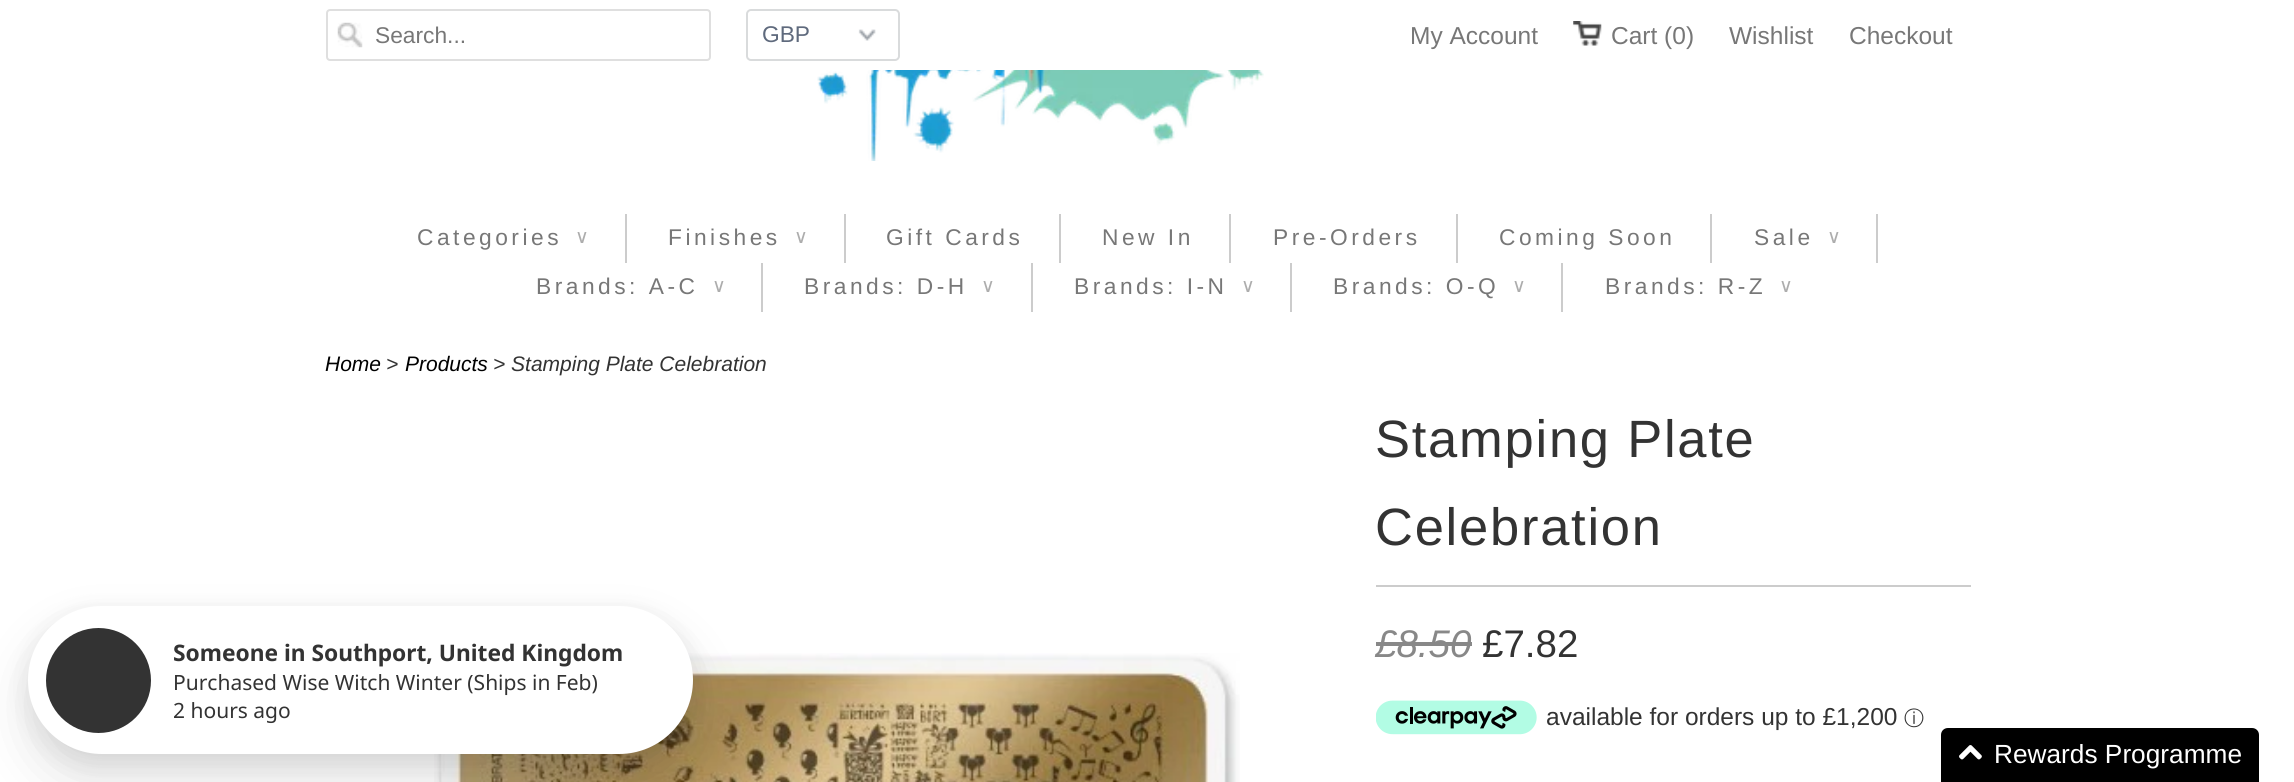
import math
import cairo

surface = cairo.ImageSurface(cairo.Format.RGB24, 2294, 782)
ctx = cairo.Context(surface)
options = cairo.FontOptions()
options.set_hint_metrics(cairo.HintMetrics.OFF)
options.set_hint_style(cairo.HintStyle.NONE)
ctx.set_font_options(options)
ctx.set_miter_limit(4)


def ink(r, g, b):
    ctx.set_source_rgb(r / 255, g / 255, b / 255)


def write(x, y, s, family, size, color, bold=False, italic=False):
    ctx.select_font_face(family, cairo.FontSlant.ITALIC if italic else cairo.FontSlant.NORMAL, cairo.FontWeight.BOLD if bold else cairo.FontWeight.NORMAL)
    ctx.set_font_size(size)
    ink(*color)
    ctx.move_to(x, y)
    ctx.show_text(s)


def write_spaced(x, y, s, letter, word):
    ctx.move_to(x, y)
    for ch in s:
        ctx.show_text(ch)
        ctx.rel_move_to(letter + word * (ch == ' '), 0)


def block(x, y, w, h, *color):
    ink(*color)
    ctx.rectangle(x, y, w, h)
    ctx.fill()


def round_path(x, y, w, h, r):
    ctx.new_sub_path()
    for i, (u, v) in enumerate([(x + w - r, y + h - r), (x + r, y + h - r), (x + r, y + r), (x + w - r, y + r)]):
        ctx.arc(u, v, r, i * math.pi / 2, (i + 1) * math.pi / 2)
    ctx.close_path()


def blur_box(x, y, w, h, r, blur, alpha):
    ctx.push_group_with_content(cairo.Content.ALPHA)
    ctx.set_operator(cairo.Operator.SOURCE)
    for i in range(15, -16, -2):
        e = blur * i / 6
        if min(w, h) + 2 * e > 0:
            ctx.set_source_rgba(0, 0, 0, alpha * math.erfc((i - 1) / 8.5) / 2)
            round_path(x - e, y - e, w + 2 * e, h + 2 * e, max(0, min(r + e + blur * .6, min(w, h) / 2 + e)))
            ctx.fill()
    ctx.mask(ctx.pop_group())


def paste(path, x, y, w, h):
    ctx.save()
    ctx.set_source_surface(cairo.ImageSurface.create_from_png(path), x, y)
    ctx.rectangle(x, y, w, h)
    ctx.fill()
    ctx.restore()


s1 = dict(family="Liberation Sans", size=22.75, color=(119, 119, 119))
s2 = dict(family="Liberation Sans", size=22.75, color=(95, 106, 125))
s3 = dict(family="Liberation Sans", size=24.5, color=(119, 119, 119))
s4 = dict(family="Liberation Sans", size=21, color=(0, 0, 0), italic=True)
s5 = dict(family="Liberation Sans", size=21, color=(51, 51, 51), italic=True)
s6 = dict(family="Liberation Sans", size=38.5, color=(136, 136, 136), italic=True)
s7 = dict(family="Liberation Sans", size=38.5, color=(51, 51, 51))
s8 = dict(family="Liberation Sans", size=24.5, color=(51, 51, 51))
s9 = dict(family="WenQuanYi Zen Hei Medium", size=20, color=(51, 51, 51))
s10 = dict(family="Noto Sans", size=22.75, color=(51, 51, 51), bold=True)
s11 = dict(family="Noto Sans", size=21, color=(51, 51, 51))
s12 = dict(family="Liberation Sans", size=26.25, color=(255, 255, 255))

ink(255, 255, 255)
ctx.paint()
paste("pic1.png", 337, 22, 26, 26)
round_path(327, 10, 383, 50, 3)
ink(223, 223, 223)
ctx.stroke()
write(375, 43, "Search...", **s1)
paste("pic2.png", 858, 29, 18, 12)
round_path(747, 10, 152, 50, 4)
ink(217, 219, 220)
ctx.stroke()
write(762, 42, "GBP", **s2)
write(1410, 44, "My Account", **s3)
paste("pic3.png", 1573, 21, 29, 25)
write(1611, 44, "Cart (0)", **s3)
write(1729, 44, "Wishlist", **s3)
write(1849, 44, "Checkout", **s3)
paste("pic4.png", 817, 70, 447, 91)
block(625, 214, 2, 49, 204, 204, 204)
ctx.set_font_size(22.75)
ink(119, 119, 119)
write_spaced(417, 245, "Categories", 3.5, 0)
ctx.select_font_face("DejaVu Sans")
ctx.set_font_size(19)
ink(173, 173, 173)
write_spaced(575, 243, "∨", 3.5, 0)
block(844, 214, 2, 49, 204, 204, 204)
ctx.select_font_face("Liberation Sans")
ctx.set_font_size(22.75)
ink(119, 119, 119)
write_spaced(668, 245, "Finishes", 3.5, 0)
ctx.select_font_face("DejaVu Sans")
ctx.set_font_size(19)
ink(173, 173, 173)
write_spaced(794, 243, "∨", 3.5, 0)
block(1059, 214, 2, 49, 204, 204, 204)
ctx.select_font_face("Liberation Sans")
ctx.set_font_size(22.75)
ink(119, 119, 119)
write_spaced(886, 245, "Gift Cards", 3.5, 0)
block(1229, 214, 2, 49, 204, 204, 204)
ink(119, 119, 119)
write_spaced(1102, 245, "New In", 3.5, 0)
block(1456, 214, 2, 49, 204, 204, 204)
ink(119, 119, 119)
write_spaced(1273, 245, "Pre-Orders", 3.5, 0)
block(1710, 214, 2, 49, 204, 204, 204)
ink(119, 119, 119)
write_spaced(1499, 245, "Coming Soon", 3.5, 0)
block(1876, 214, 2, 49, 204, 204, 204)
ink(119, 119, 119)
write_spaced(1754, 245, "Sale", 3.5, 0)
ctx.select_font_face("DejaVu Sans")
ctx.set_font_size(19)
ink(173, 173, 173)
write_spaced(1827, 243, "∨", 3.5, 0)
block(761, 263, 2, 49, 204, 204, 204)
ctx.select_font_face("Liberation Sans")
ctx.set_font_size(22.75)
ink(119, 119, 119)
write_spaced(536, 294, "Brands: A-C", 3.5, 0)
ctx.select_font_face("DejaVu Sans")
ctx.set_font_size(19)
ink(173, 173, 173)
write_spaced(712, 292, "∨", 3.5, 0)
block(1031, 263, 2, 49, 204, 204, 204)
ctx.select_font_face("Liberation Sans")
ctx.set_font_size(22.75)
ink(119, 119, 119)
write_spaced(804, 294, "Brands: D-H", 3.5, 0)
ctx.select_font_face("DejaVu Sans")
ctx.set_font_size(19)
ink(173, 173, 173)
write_spaced(981, 292, "∨", 3.5, 0)
block(1290, 263, 2, 49, 204, 204, 204)
ctx.select_font_face("Liberation Sans")
ctx.set_font_size(22.75)
ink(119, 119, 119)
write_spaced(1074, 294, "Brands: I-N", 3.5, 0)
ctx.select_font_face("DejaVu Sans")
ctx.set_font_size(19)
ink(173, 173, 173)
write_spaced(1241, 292, "∨", 3.5, 0)
block(1561, 263, 2, 49, 204, 204, 204)
ctx.select_font_face("Liberation Sans")
ctx.set_font_size(22.75)
ink(119, 119, 119)
write_spaced(1333, 294, "Brands: O-Q", 3.5, 0)
ctx.select_font_face("DejaVu Sans")
ctx.set_font_size(19)
ink(173, 173, 173)
write_spaced(1512, 292, "∨", 3.5, 0)
ctx.select_font_face("Liberation Sans")
ctx.set_font_size(22.75)
ink(119, 119, 119)
write_spaced(1605, 294, "Brands: R-Z", 3.5, 0)
ctx.select_font_face("DejaVu Sans")
ctx.set_font_size(19)
ink(173, 173, 173)
write_spaced(1779, 292, "∨", 3.5, 0)
write(325, 371, "Home", **s4)
write(386, 371, ">", **s5)
write(405, 371, "Products", **s4)
write(493, 371, "> Stamping Plate Celebration", **s5)
paste("pic5.png", 434, 653, 806, 129)
block(1376, 585, 595, 2, 204, 204, 204)
ctx.select_font_face("Liberation Sans")
ctx.set_font_size(52.5)
ink(51, 51, 51)
write_spaced(1375, 457, "Stamping Plate", 1.75, 0)
write_spaced(1375, 545, "Celebration", 1.75, 0)
write(1375, 657, "£8.50", **s6)
block(1376, 642, 96, 4, 136, 136, 136)
write(1482, 657, "£7.82", **s7)
paste("pic6.png", 1376, 700, 161, 35)
write(1546, 725, "available for orders up to £1,200", **s8)
write(1904, 725, "ⓘ", **s9)
ink(0, 0, 0)
blur_box(28, 614, 665, 149, 74.5, 13, 0.08)
blur_box(28, 632, 665, 149, 74.5, 26, 0.11)
ink(255, 255, 255)
round_path(28, 606, 665, 148, 74)
ctx.fill()
ink(51, 51, 51)
ctx.arc(98.5, 680.5, 52.5, 0, 2 * math.pi)
ctx.fill()
write(173, 661, "Someone in Southport, United Kingdom", **s10)
write(173, 690, "Purchased Wise Witch Winter (Ships in Feb)", **s11)
write(173, 718, "2 hours ago", **s11)
ink(0, 0, 0)
ctx.new_path()
ctx.move_to(1948, 728)
ctx.line_to(2252, 728)
ctx.curve_to(2256, 728, 2259, 731, 2259, 735)
ctx.line_to(2259, 782)
ctx.line_to(1941, 782)
ctx.line_to(1941, 735)
ctx.curve_to(1941, 731, 1944, 728, 1948, 728)
ctx.close_path()
ctx.fill()
paste("pic7.png", 1959, 745, 23, 15)
write(1994, 763, "Rewards Programme", **s12)
surface.write_to_png("screenshot.png")
